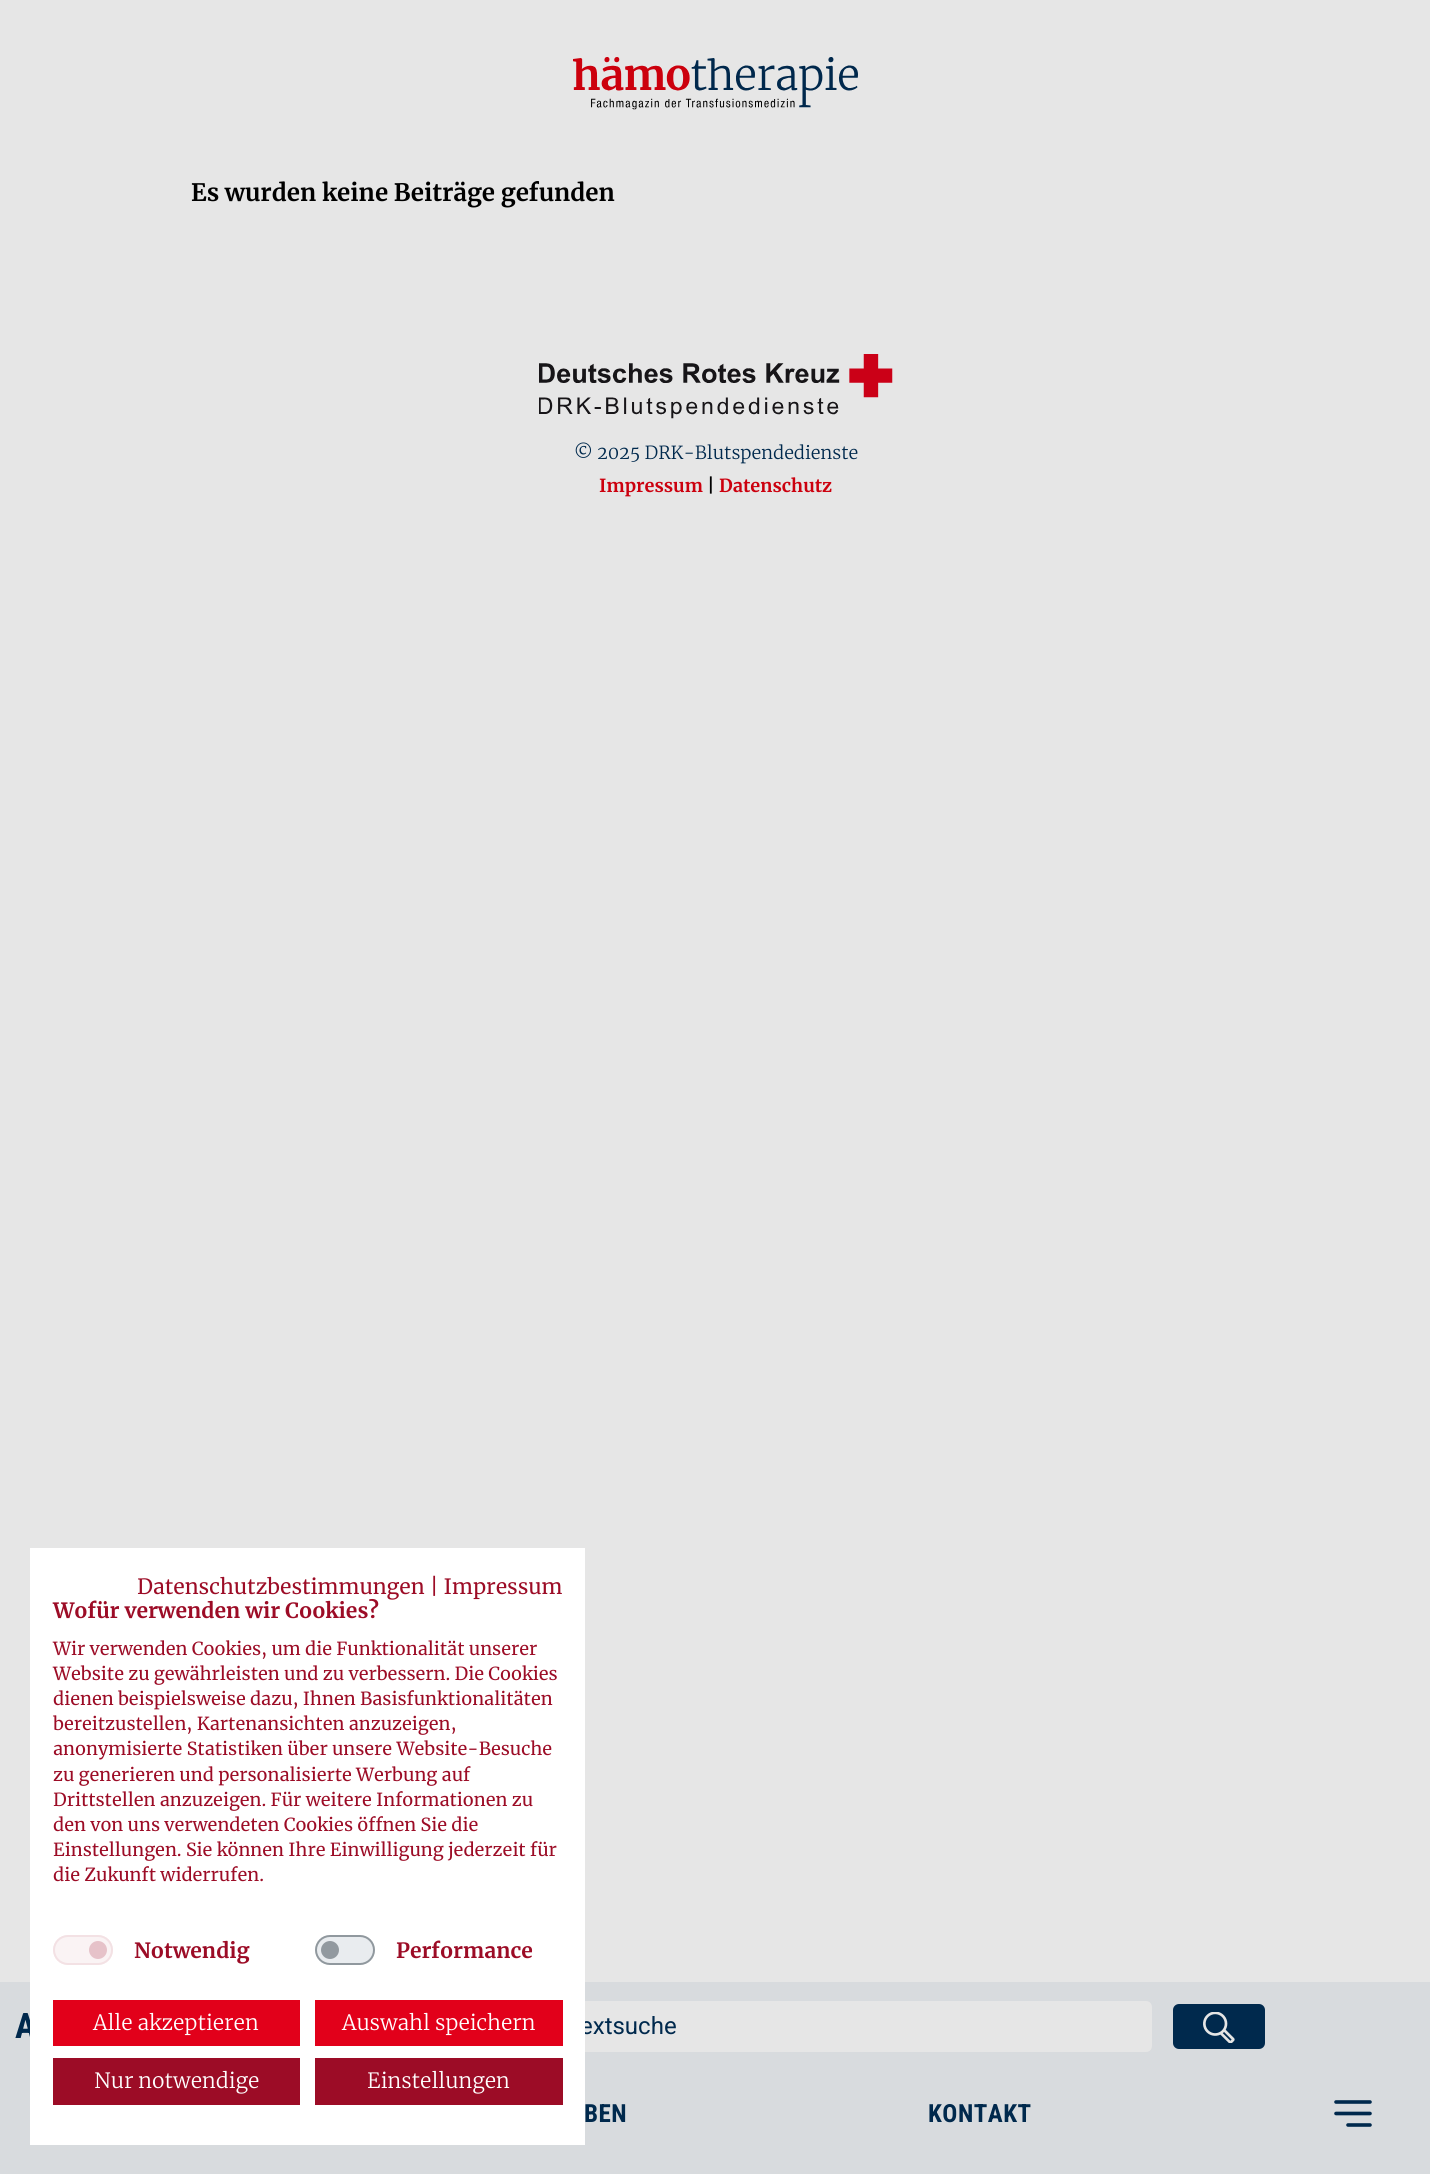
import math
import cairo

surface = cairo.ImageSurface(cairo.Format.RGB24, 1430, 2174)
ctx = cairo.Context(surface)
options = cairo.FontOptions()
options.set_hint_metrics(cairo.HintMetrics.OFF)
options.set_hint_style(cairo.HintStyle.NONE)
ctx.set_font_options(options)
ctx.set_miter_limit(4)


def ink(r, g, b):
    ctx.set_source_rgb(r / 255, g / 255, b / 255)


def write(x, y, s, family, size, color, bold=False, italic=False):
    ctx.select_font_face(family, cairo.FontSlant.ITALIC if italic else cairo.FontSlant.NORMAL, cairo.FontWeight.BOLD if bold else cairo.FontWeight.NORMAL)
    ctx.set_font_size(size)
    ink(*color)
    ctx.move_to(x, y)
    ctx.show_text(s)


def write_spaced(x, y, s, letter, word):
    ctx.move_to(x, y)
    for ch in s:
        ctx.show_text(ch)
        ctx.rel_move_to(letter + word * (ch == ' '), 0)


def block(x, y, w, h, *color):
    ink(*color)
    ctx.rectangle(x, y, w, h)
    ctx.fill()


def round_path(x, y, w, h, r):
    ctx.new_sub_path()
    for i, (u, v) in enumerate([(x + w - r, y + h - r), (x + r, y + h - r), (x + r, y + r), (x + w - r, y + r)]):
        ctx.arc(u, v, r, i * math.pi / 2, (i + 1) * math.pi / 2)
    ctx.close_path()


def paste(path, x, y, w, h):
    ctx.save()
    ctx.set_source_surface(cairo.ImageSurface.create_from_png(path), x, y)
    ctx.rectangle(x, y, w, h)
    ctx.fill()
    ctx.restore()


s1 = dict(family="Merriweather", size=24, color=(0, 0, 0), bold=True)
s2 = dict(family="Roboto Condensed", size=35, color=(0, 41, 77), bold=True)
s3 = dict(family="Roboto", size=24, color=(0, 41, 77))
s4 = dict(family="Merriweather Light", size=18, color=(0, 41, 77))
s5 = dict(family="Merriweather", size=18, color=(204, 0, 14), bold=True)
s6 = dict(family="Merriweather", size=18, color=(0, 0, 0), bold=True)
s7 = dict(family="Merriweather", size=21, color=(156, 12, 38))
s8 = dict(family="Merriweather", size=21, color=(156, 12, 38), bold=True)
s9 = dict(family="Merriweather", size=18, color=(156, 12, 38))
s10 = dict(family="Merriweather Light", size=21, color=(255, 255, 255))

ink(230, 230, 230)
ctx.paint()
paste("pic1.png", 573, 57, 285, 53)
write(191, 201, "Es wurden keine Beiträge gefunden", **s1)
block(0, 1982, 1430, 192, 216, 219, 222)
write(15, 2038, "A", **s2)
ink(230, 230, 230)
round_path(516, 2001, 636, 51, 6)
ctx.fill()
write(580, 2034, "extsuche", **s3)
round_path(1173, 2004, 92, 45, 6)
ctx.fill()
paste("pic2.png", 1203, 2012, 32, 31)
paste("pic3.png", 539, 354, 354, 65)
write(574, 459, "© 2025 DRK-Blutspendedienste", **s4)
write(599, 492, "Impressum", **s5)
write(707, 492, "|", **s6)
write(719, 492, "Datenschutz", **s5)
block(30, 1548, 555, 597, 255, 255, 255)
write(137, 1594, "Datenschutzbestimmungen | Impressum", **s7)
write(53, 1618, "Wofür verwenden wir Cookies?", **s8)
write(53, 1655, "Wir verwenden Cookies, um die Funktionalität unserer", **s9)
write(53, 1680, "Website zu gewährleisten und zu verbessern. Die Cookies", **s9)
write(53, 1705, "dienen beispielsweise dazu, Ihnen Basisfunktionalitäten", **s9)
write(53, 1730, "bereitzustellen, Kartenansichten anzuzeigen,", **s9)
write(53, 1755, "anonymisierte Statistiken über unsere Website-Besuche", **s9)
write(53, 1781, "zu generieren und personalisierte Werbung auf", **s9)
write(53, 1806, "Drittstellen anzuzeigen. Für weitere Informationen zu", **s9)
write(53, 1831, "den von uns verwendeten Cookies öffnen Sie die", **s9)
write(53, 1856, "Einstellungen. Sie können Ihre Einwilligung jederzeit für", **s9)
write(53, 1881, "die Zukunft widerrufen.", **s9)
ink(250, 243, 244)
round_path(53, 1935, 60, 30, 15)
ctx.fill()
ink(230, 194, 201)
ctx.arc(98, 1950, 9, 0, 2 * math.pi)
ctx.fill()
round_path(54, 1936, 58, 28, 14)
ink(243, 225, 228)
ctx.stroke()
write(134, 1958, "Notwendig", **s8)
ink(233, 236, 239)
round_path(315, 1935, 60, 30, 15)
ctx.fill()
ink(146, 153, 159)
ctx.arc(330, 1950, 9, 0, 2 * math.pi)
ctx.fill()
round_path(316, 1936, 58, 28, 14)
ctx.set_source_rgba(0.424, 0.459, 0.49, 0.7)
ctx.stroke()
write(396, 1958, "Performance", **s8)
block(53, 2000, 247, 46, 226, 0, 26)
write(93, 2030, "Alle akzeptieren", **s10)
block(315, 2000, 248, 46, 226, 0, 26)
write(342, 2030, "Auswahl speichern", **s10)
block(53, 2058, 247, 47, 156, 12, 38)
write(94, 2088, "Nur notwendige", **s10)
block(315, 2058, 248, 47, 156, 12, 38)
write(367, 2088, "Einstellungen", **s10)
ctx.select_font_face("Roboto Condensed", cairo.FontSlant.NORMAL, cairo.FontWeight.BOLD)
ctx.set_font_size(25)
ink(0, 41, 77)
write_spaced(584, 2122, "BEN", 0.5, 0)
write_spaced(928, 2122, "KONTAKT", 0.5, 0)
ctx.new_path()
ctx.move_to(1370, 2102)
ctx.line_to(1336, 2102)
ctx.move_to(1370, 2113.5)
ctx.line_to(1336, 2113.5)
ctx.move_to(1370, 2125)
ctx.line_to(1348, 2125)
ctx.set_line_width(3.6)
ctx.set_line_cap(cairo.LineCap.ROUND)
ctx.stroke()
surface.write_to_png("screenshot.png")
